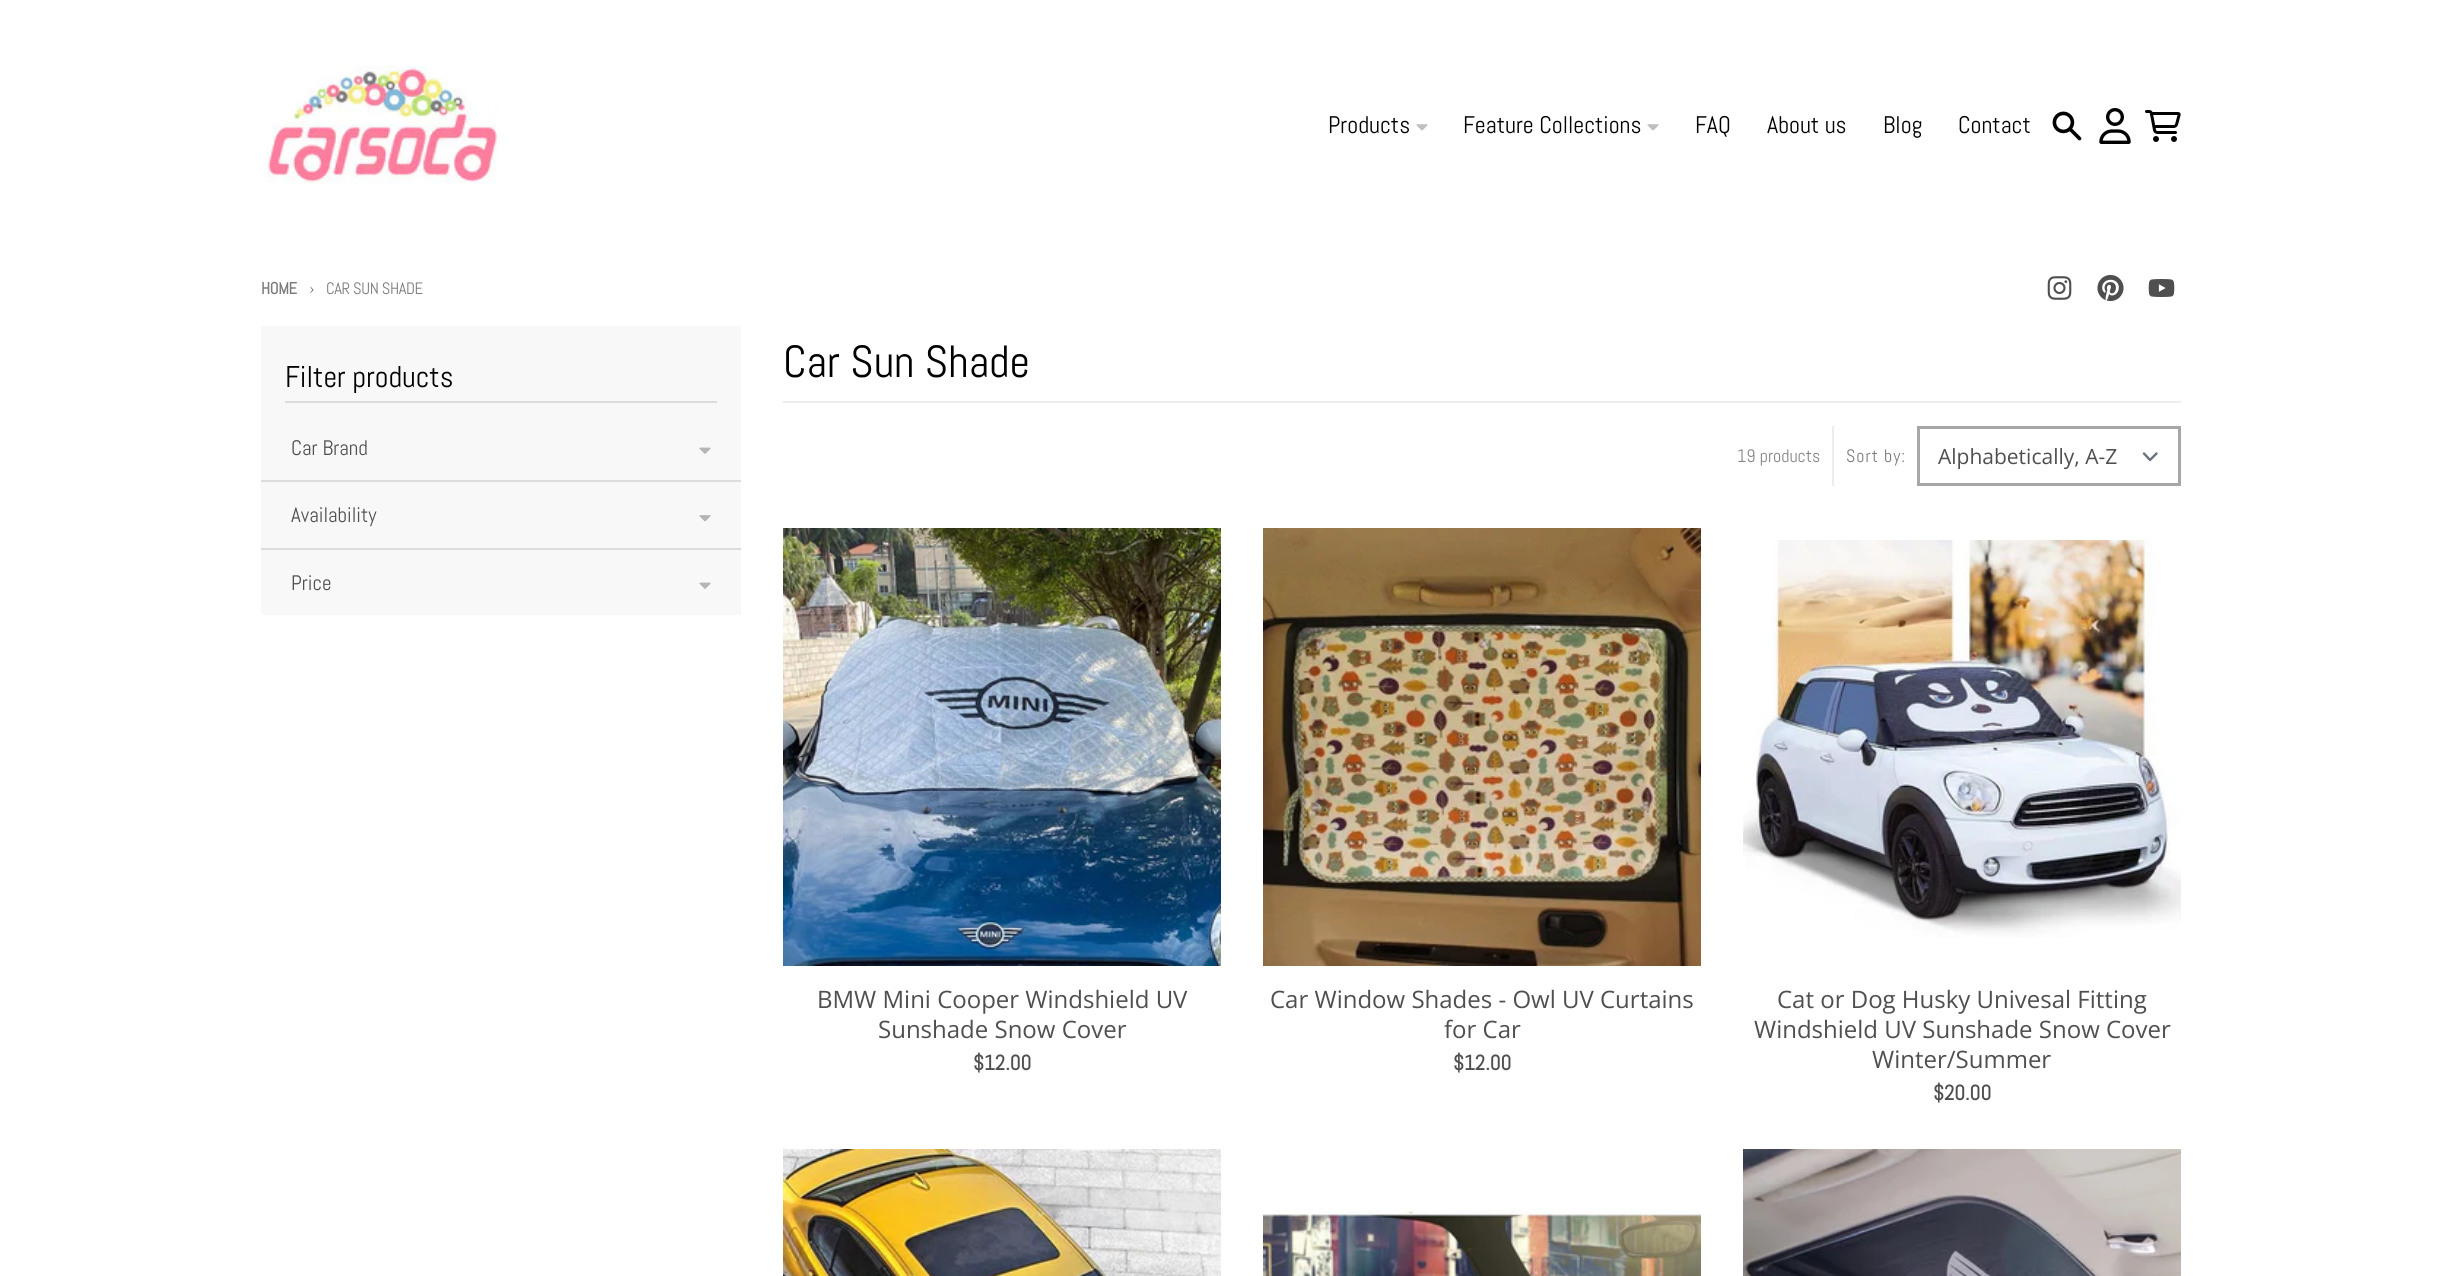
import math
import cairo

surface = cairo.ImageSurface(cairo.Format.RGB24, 2441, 1276)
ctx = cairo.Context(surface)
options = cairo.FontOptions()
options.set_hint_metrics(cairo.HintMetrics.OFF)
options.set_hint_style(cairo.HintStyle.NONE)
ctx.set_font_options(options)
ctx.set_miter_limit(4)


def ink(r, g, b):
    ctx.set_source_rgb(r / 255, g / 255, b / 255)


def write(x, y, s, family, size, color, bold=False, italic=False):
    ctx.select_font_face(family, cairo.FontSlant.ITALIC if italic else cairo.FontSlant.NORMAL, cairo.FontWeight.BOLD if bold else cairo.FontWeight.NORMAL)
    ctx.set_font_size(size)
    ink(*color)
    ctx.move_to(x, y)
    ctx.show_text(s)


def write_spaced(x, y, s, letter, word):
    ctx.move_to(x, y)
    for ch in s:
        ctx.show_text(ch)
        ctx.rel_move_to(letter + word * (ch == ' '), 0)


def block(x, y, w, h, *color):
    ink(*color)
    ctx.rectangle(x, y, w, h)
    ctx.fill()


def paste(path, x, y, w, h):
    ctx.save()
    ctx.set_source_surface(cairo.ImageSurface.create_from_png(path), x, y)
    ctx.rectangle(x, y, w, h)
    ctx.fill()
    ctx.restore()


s1 = dict(family="Abel", size=24, color=(0, 0, 0))
s2 = dict(family="Abel", size=30, color=(0, 0, 0))
s3 = dict(family="Abel", size=21, color=(79, 79, 79))
s4 = dict(family="Abel", size=45, color=(0, 0, 0))
s5 = dict(family="Abel", size=18, color=(132, 132, 132))
s6 = dict(family="Open Sans", size=21, color=(79, 79, 79))
s7 = dict(family="Open Sans", size=24, color=(79, 79, 79))
s8 = dict(family="Abel", size=21, color=(79, 79, 79), bold=True)

ink(255, 255, 255)
ctx.paint()
paste("pic1.png", 263, 66, 236, 118)
write(1328, 133, "Products", **s1)
paste("pic2.png", 1416, 124, 12, 7)
write(1463, 133, "Feature Collections", **s1)
paste("pic2.png", 1647, 124, 12, 7)
write(1695, 133, "FAQ", **s1)
write(1767, 133, "About us", **s1)
write(1883, 133, "Blog", **s1)
write(1958, 133, "Contact", **s1)
paste("pic3.png", 2052, 111, 30, 30)
paste("pic4.png", 2099, 108, 32, 36)
paste("pic5.png", 2145, 110, 36, 32)
ctx.select_font_face("Abel", cairo.FontSlant.NORMAL, cairo.FontWeight.BOLD)
ctx.set_font_size(16.5)
ink(123, 123, 123)
write_spaced(261, 294, "HOME", -0.4, 0)
ctx.select_font_face("Abel")
ctx.set_font_size(18)
write_spaced(309, 294, "›", -0.4, 0)
ctx.set_font_size(16.5)
write_spaced(326, 294, "CAR SUN SHADE", -0.4, 0)
paste("pic6.png", 2047, 276, 25, 24)
paste("pic7.png", 2097, 275, 27, 27)
paste("pic8.png", 2148, 279, 27, 18)
block(261, 326, 480, 289, 248, 248, 248)
block(285, 401, 432, 2, 220, 220, 220)
write(285, 387, "Filter products", **s2)
write(291, 455, "Car Brand", **s3)
paste("pic9.png", 699, 447, 12, 7)
block(261, 480, 480, 2, 220, 220, 220)
write(291, 522, "Availability", **s3)
paste("pic10.png", 699, 515, 12, 7)
block(261, 548, 480, 2, 220, 220, 220)
write(291, 590, "Price", **s3)
paste("pic9.png", 699, 582, 12, 7)
block(783, 401, 1398, 2, 237, 237, 237)
write(783, 377, "Car Sun Shade", **s4)
write(1737, 462, "19 products", **s5)
block(1832, 426, 2, 60, 237, 237, 237)
ink(123, 123, 123)
write_spaced(1846, 462, "Sort by:", 1, 0)
ctx.new_path()
ctx.move_to(2144, 453.5)
ctx.line_to(2150, 460)
ctx.line_to(2156.5, 453.5)
ink(107, 114, 128)
ctx.set_line_width(2.4)
ctx.set_line_cap(cairo.LineCap.ROUND)
ctx.set_line_join(cairo.LineJoin.ROUND)
ctx.stroke()
ctx.rectangle(1918.5, 427.5, 261, 57)
ink(167, 167, 167)
ctx.set_line_width(3)
ctx.set_line_cap(cairo.LineCap.BUTT)
ctx.set_line_join(cairo.LineJoin.MITER)
ctx.stroke()
write(1938, 464, "Alphabetically, A-Z", **s6)
paste("pic11.png", 783, 528, 438, 438)
write(817, 1008, "BMW Mini Cooper Windshield UV", **s7)
write(878, 1038, "Sunshade Snow Cover", **s7)
write(973, 1070, "$12.00", **s8)
paste("pic12.png", 1263, 528, 438, 438)
write(1270, 1008, "Car Window Shades - Owl UV Curtains", **s7)
write(1444, 1038, "for Car", **s7)
write(1453, 1070, "$12.00", **s8)
paste("pic13.png", 1743, 540, 438, 398)
write(1777, 1008, "Cat or Dog Husky Univesal Fitting", **s7)
write(1754, 1038, "Windshield UV Sunshade Snow Cover", **s7)
write(1872, 1068, "Winter/Summer", **s7)
write(1933, 1100, "$20.00", **s8)
paste("pic14.png", 783, 1149, 438, 127)
paste("pic15.png", 1263, 1208, 438, 68)
paste("pic16.png", 1743, 1149, 438, 127)
surface.write_to_png("screenshot.png")
